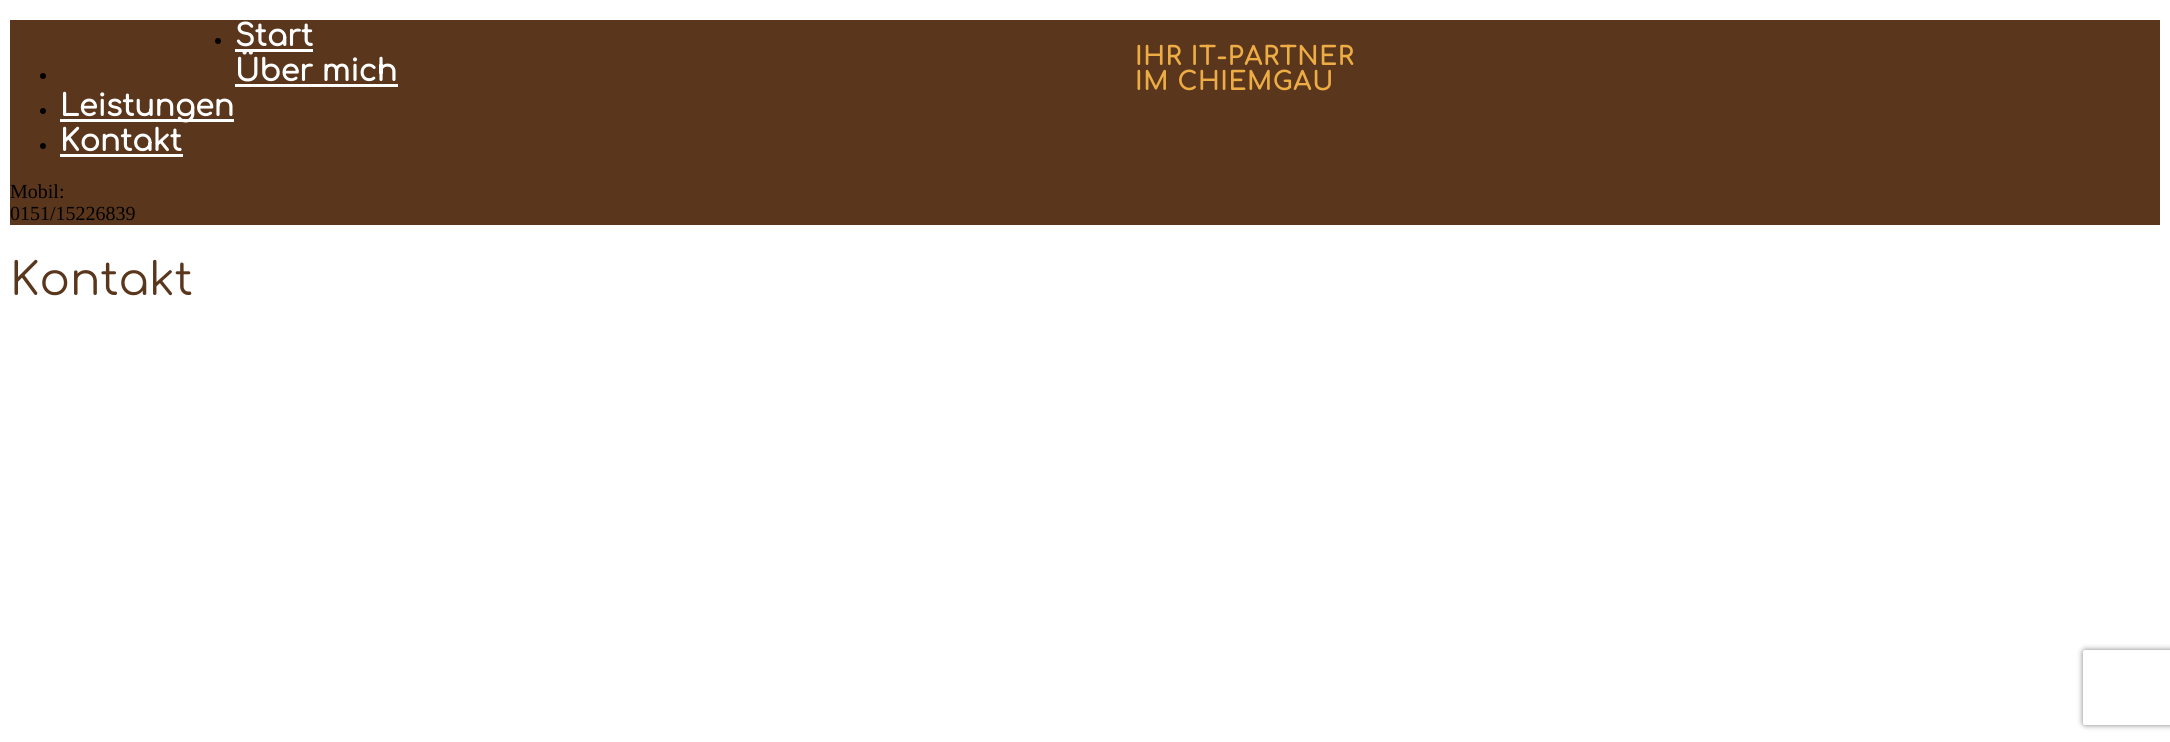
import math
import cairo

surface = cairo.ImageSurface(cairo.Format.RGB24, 2170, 742)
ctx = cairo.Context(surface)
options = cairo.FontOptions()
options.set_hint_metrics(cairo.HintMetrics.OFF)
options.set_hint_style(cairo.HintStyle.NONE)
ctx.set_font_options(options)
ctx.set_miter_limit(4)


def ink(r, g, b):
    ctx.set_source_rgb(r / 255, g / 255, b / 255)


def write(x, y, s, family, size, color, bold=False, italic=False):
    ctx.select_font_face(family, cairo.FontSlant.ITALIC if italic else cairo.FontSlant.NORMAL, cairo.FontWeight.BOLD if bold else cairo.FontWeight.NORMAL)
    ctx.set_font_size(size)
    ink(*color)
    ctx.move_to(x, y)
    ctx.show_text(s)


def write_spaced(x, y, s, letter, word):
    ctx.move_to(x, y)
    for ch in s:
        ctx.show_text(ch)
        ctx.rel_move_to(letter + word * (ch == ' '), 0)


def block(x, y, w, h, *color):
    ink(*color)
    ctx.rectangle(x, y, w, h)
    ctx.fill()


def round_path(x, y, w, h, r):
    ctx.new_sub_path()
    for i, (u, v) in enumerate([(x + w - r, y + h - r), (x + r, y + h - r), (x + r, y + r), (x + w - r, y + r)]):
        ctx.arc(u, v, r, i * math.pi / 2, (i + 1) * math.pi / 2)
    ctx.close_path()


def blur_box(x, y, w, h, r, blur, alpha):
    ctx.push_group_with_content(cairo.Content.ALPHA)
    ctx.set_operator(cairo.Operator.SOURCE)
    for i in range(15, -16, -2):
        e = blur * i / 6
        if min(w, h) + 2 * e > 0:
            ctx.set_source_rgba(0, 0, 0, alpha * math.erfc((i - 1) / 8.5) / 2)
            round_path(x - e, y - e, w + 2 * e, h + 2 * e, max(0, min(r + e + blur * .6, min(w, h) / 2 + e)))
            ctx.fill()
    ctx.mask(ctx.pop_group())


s1 = dict(family="Comfortaa", size=30, color=(255, 255, 255), bold=True)
s2 = dict(family="Liberation Serif", size=20, color=(0, 0, 0))
s3 = dict(family="Comfortaa", size=45, color=(90, 54, 29))

ink(255, 255, 255)
ctx.paint()
block(10, 20, 2150, 205, 90, 54, 29)
ink(0, 0, 0)
ctx.arc(218, 41, 3, 0, 2 * math.pi)
ctx.fill()
write(235, 46, "Start", **s1)
block(235, 49, 78, 3, 255, 255, 255)
ink(0, 0, 0)
ctx.new_path()
ctx.arc(43, 76, 3, 0, 2 * math.pi)
ctx.fill()
write(235, 81, "Über mich", **s1)
block(235, 84, 163, 3, 255, 255, 255)
ink(0, 0, 0)
ctx.new_path()
ctx.arc(43, 111, 3, 0, 2 * math.pi)
ctx.fill()
block(60, 119, 174, 3, 255, 255, 255)
write(60, 116, "Leistungen", **s1)
ink(0, 0, 0)
ctx.new_path()
ctx.arc(43, 146, 3, 0, 2 * math.pi)
ctx.fill()
write(60, 151, "Kontakt", **s1)
block(60, 154, 123, 3, 255, 255, 255)
write(10, 198, "Mobil:", **s2)
write(10, 220, "0151/15226839", **s2)
ctx.select_font_face("Comfortaa", cairo.FontSlant.NORMAL, cairo.FontWeight.BOLD)
ctx.set_font_size(25)
ink(237, 173, 68)
write_spaced(1135, 65, "IHR IT-PARTNER", 1.25, 0)
write_spaced(1135, 90, "IM CHIEMGAU", 1.25, 0)
write(10, 295, "Kontakt", **s3)
ctx.save()
ctx.set_fill_rule(cairo.FillRule.EVEN_ODD)
ctx.new_path()
ctx.move_to(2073, 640)
ctx.line_to(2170, 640)
ctx.line_to(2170, 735)
ctx.line_to(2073, 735)
ctx.close_path()
ctx.move_to(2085.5, 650)
ctx.line_to(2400.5, 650)
ctx.curve_to(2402, 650, 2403, 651, 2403, 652.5)
ctx.line_to(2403, 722.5)
ctx.curve_to(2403, 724, 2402, 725, 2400.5, 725)
ctx.line_to(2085.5, 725)
ctx.curve_to(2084, 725, 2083, 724, 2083, 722.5)
ctx.line_to(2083, 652.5)
ctx.curve_to(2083, 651, 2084, 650, 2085.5, 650)
ctx.close_path()
ctx.clip()
ink(128, 128, 128)
blur_box(2083, 650, 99, 75, 2.5, 3, 1)
ctx.restore()
surface.write_to_png("screenshot.png")
